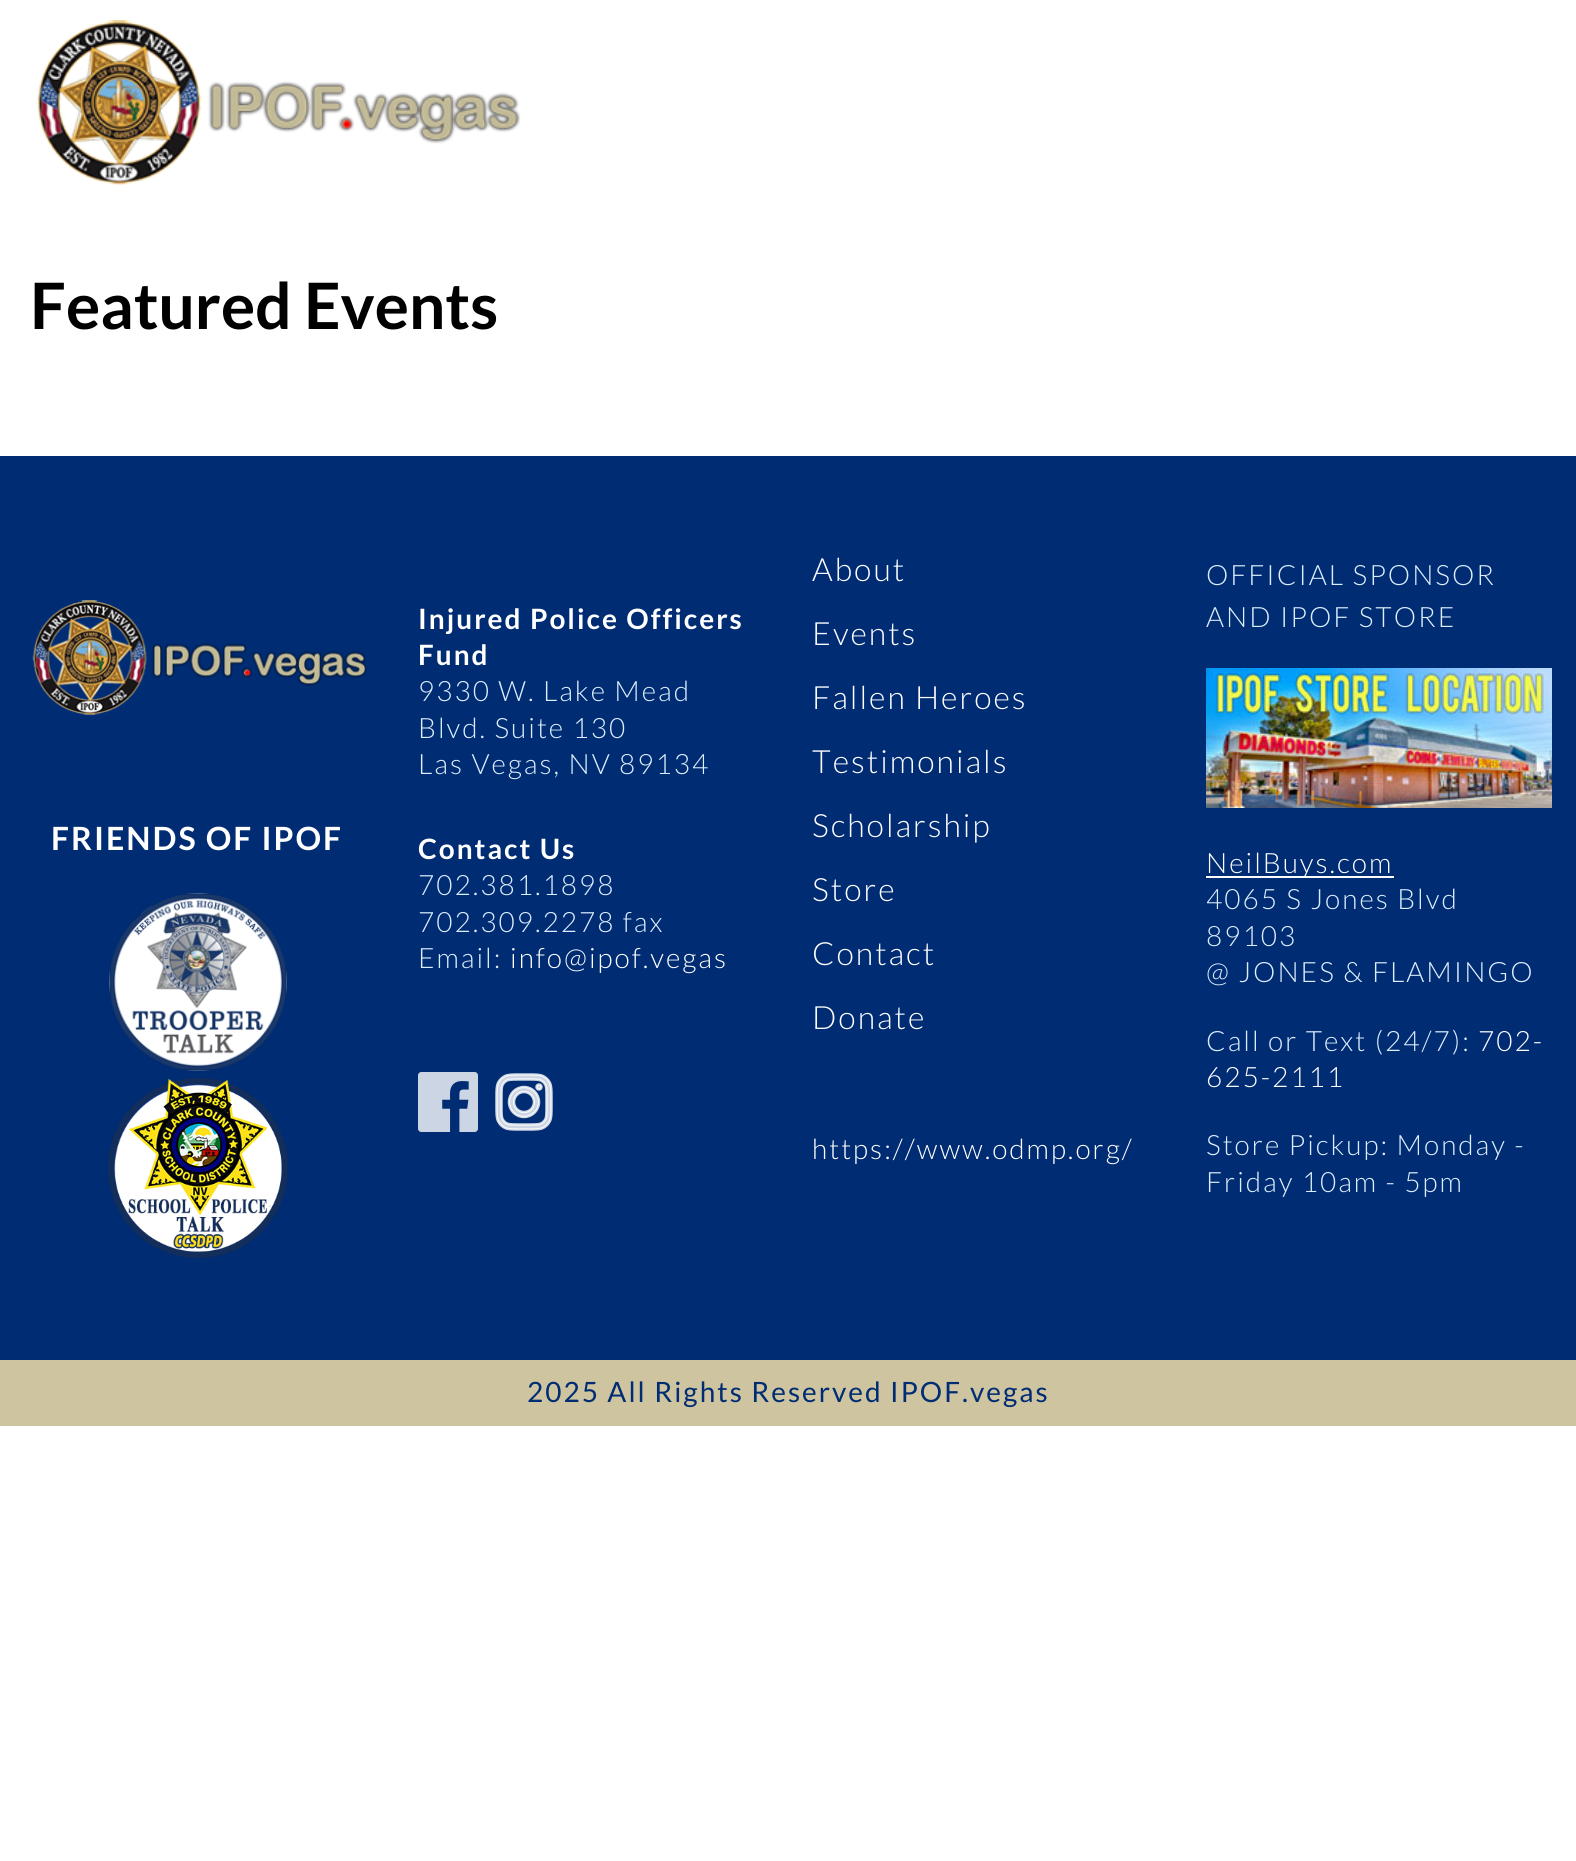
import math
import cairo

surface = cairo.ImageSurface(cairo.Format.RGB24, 1576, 1861)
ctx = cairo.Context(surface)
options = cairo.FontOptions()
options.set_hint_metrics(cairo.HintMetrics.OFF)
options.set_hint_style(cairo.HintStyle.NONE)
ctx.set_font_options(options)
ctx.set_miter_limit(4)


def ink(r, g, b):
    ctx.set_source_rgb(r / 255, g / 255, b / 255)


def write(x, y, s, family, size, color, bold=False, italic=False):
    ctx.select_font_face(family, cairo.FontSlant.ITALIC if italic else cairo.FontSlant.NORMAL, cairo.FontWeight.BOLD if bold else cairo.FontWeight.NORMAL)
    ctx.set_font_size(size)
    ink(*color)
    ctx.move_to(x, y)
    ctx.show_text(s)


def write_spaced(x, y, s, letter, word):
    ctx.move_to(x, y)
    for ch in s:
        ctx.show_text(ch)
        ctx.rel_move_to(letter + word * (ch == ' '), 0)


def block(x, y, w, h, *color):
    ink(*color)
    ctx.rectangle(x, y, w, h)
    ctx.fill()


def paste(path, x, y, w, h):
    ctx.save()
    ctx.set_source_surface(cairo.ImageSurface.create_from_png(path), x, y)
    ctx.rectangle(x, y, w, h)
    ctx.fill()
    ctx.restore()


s1 = dict(family="Lato", size=64, color=(0, 0, 0), bold=True)

ink(255, 255, 255)
ctx.paint()
paste("pic1.png", 36, 20, 485, 165)
write(30, 329, "Featured Events", **s1)
block(0, 456, 1576, 904, 0, 44, 115)
paste("pic2.png", 32, 600, 335, 116)
ctx.set_font_size(32)
ink(255, 255, 255)
write_spaced(51, 850, "FRIENDS OF IPOF", 2, 0)
paste("pic3.png", 109, 893, 178, 178)
paste("pic4.png", 108, 1078, 180, 180)
ctx.set_font_size(28)
write_spaced(418, 629, "Injured Police Officers", 2, 0)
write_spaced(418, 665, "Fund", 2, 0)
ctx.select_font_face("Lato Light")
ink(220, 238, 252)
write_spaced(418, 701, "9330 W. Lake Mead", 2, 0)
write_spaced(418, 738, "Blvd. Suite 130", 2, 0)
write_spaced(418, 774, "Las Vegas, NV 89134", 2, 0)
ctx.select_font_face("Lato", cairo.FontSlant.NORMAL, cairo.FontWeight.BOLD)
ink(255, 255, 255)
write_spaced(418, 859, "Contact Us", 2, 0)
ctx.select_font_face("Lato Light")
ink(220, 238, 252)
write_spaced(418, 895, "702.381.1898", 2, 0)
write_spaced(418, 932, "702.309.2278 fax", 2, 0)
write_spaced(418, 968, "Email:", 2, 0)
ink(255, 255, 255)
write_spaced(510, 968, "info@ipof.vegas", 2, 0)
paste("pic5.png", 418, 1072, 60, 60)
paste("pic6.png", 495, 1073, 58, 58)
ctx.set_font_size(32)
write_spaced(812, 581, "About", 2, 0)
write_spaced(812, 645, "Events", 2, 0)
write_spaced(812, 709, "Fallen Heroes", 2, 0)
write_spaced(812, 773, "Testimonials", 2, 0)
write_spaced(812, 837, "Scholarship", 2, 0)
write_spaced(812, 901, "Store", 2, 0)
write_spaced(812, 965, "Contact", 2, 0)
write_spaced(812, 1029, "Donate", 2, 0)
ctx.set_font_size(28)
write_spaced(812, 1159, "https://www.odmp.org/", 2, 0)
ink(220, 238, 252)
write_spaced(1206, 585, "OFFICIAL SPONSOR", 2, 0)
write_spaced(1206, 627, "AND IPOF STORE", 2, 0)
paste("pic7.png", 1206, 668, 346, 140)
block(1206, 876, 188, 2, 255, 255, 255)
write_spaced(1206, 873, "NeilBuys.com", 2, 0)
ink(220, 238, 252)
write_spaced(1206, 909, "4065 S Jones Blvd", 2, 0)
write_spaced(1206, 946, "89103", 2, 0)
write_spaced(1206, 982, "@ JONES & FLAMINGO", 2, 0)
write_spaced(1206, 1051, "Call or Text (24/7):", 2, 0)
ink(255, 255, 255)
write_spaced(1478, 1051, "702-", 2, 0)
write_spaced(1206, 1087, "625-2111", 2, 0)
ink(220, 238, 252)
write_spaced(1206, 1155, "Store Pickup: Monday -", 2, 0)
write_spaced(1206, 1192, "Friday 10am - 5pm", 2, 0)
block(0, 1360, 1576, 66, 206, 196, 160)
ctx.select_font_face("Lato")
ink(0, 44, 115)
write_spaced(527, 1402, "2025 All Rights Reserved IPOF.vegas", 2, 0)
surface.write_to_png("screenshot.png")
